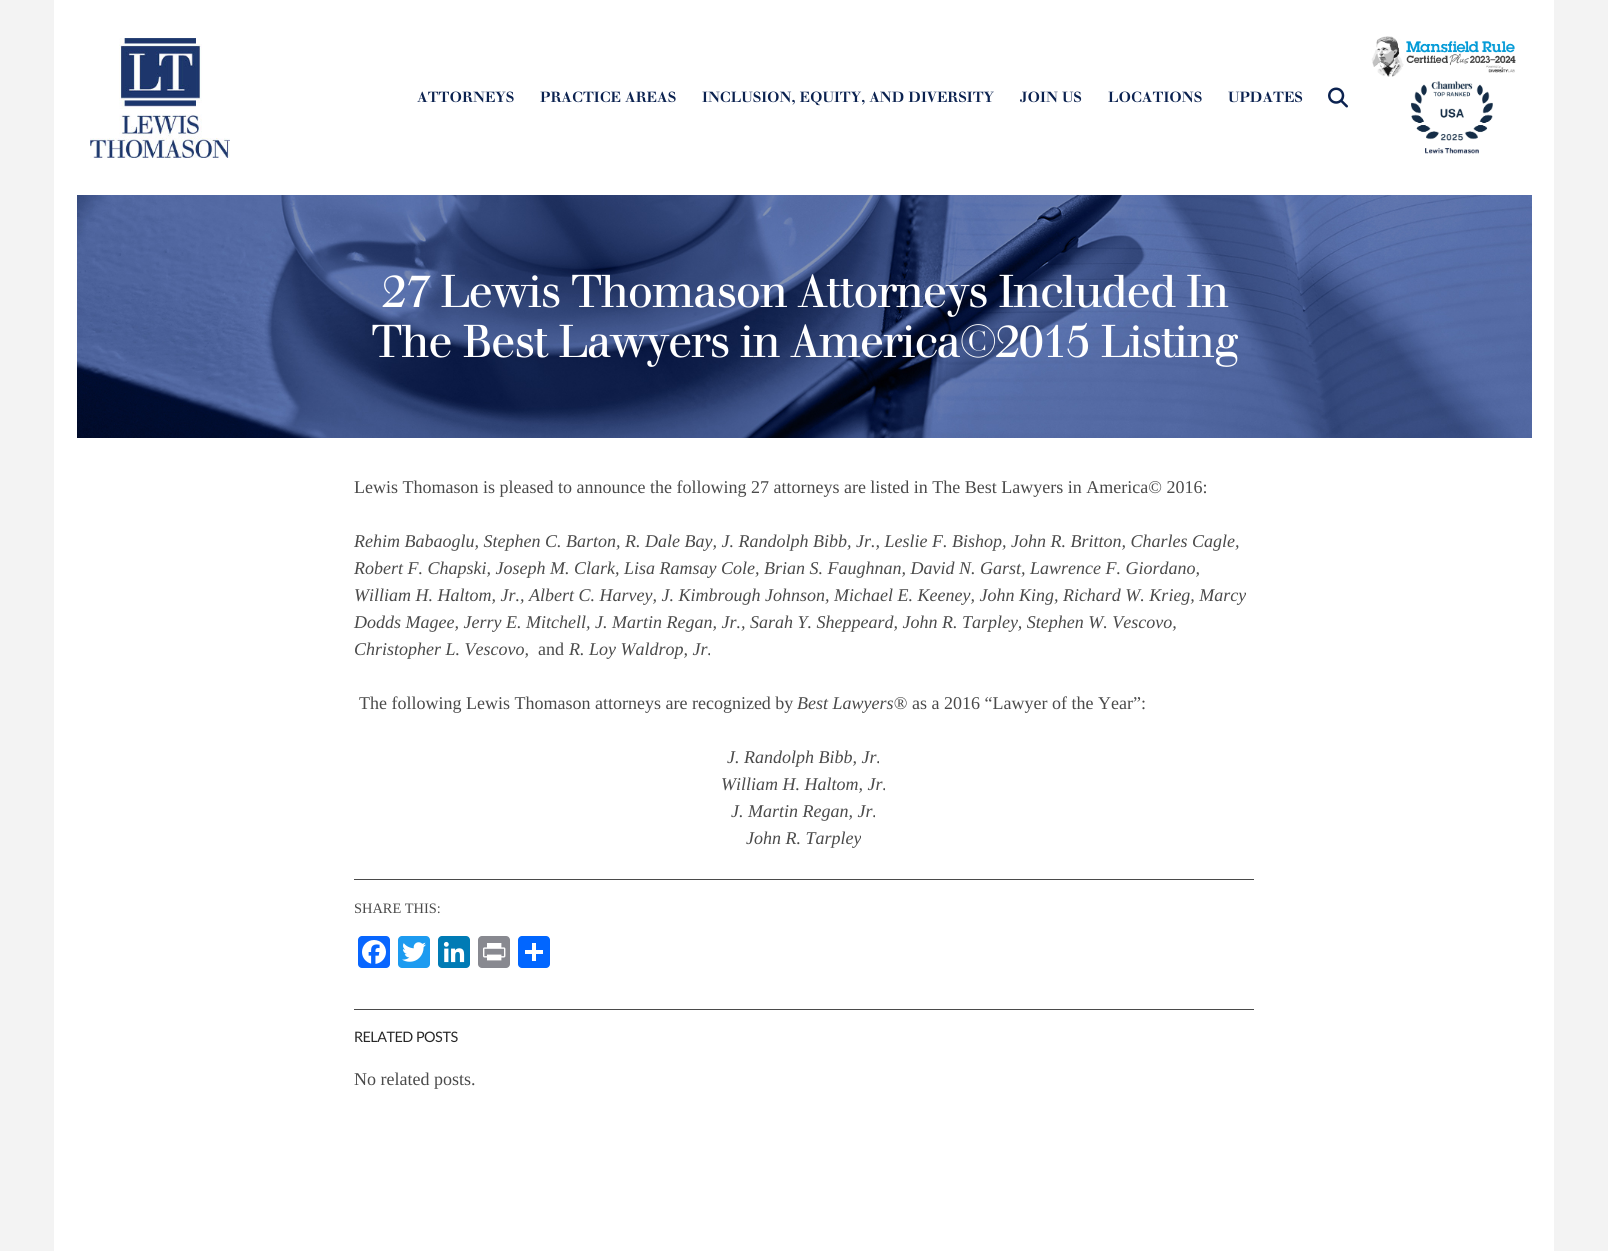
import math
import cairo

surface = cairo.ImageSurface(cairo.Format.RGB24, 1608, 1251)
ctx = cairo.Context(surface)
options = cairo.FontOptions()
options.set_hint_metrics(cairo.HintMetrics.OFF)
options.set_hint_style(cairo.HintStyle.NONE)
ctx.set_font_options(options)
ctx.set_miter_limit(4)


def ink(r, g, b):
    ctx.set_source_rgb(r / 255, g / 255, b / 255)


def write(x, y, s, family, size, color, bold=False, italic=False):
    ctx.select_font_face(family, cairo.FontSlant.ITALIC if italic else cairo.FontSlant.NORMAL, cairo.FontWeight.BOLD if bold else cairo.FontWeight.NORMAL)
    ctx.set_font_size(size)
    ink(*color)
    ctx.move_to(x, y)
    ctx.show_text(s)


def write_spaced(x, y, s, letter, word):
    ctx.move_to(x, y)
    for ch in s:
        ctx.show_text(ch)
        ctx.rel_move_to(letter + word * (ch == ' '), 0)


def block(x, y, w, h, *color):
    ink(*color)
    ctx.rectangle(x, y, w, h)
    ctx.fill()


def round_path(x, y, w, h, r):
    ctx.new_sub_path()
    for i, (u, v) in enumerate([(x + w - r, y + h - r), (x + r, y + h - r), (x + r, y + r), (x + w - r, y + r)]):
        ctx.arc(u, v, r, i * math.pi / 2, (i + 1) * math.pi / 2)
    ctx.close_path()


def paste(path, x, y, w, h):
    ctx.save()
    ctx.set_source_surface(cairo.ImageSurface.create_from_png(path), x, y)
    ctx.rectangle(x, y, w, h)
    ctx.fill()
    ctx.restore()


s1 = dict(family="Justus", size=14.4, color=(11, 34, 80), bold=True)
s2 = dict(family="Liberation Serif", size=18, color=(74, 74, 74))
s3 = dict(family="Liberation Serif", size=18, color=(74, 74, 74), italic=True)
s4 = dict(family="Liberation Serif", size=14.4, color=(74, 74, 74))

ink(243, 243, 243)
ctx.paint()
block(54, 0, 1500, 1251, 255, 255, 255)
paste("pic1.png", 90, 38, 140, 120)
write(417, 102, "ATTORNEYS", **s1)
write(540, 102, "PRACTICE AREAS", **s1)
write(702, 102, "INCLUSION, EQUITY, AND DIVERSITY", **s1)
write(1020, 102, "JOIN US", **s1)
write(1108, 102, "LOCATIONS", **s1)
write(1228, 102, "UPDATES", **s1)
paste("pic2.png", 1328, 87, 20, 21)
paste("pic3.png", 1371, 36, 145, 41)
paste("pic4.png", 1411, 81, 82, 73)
paste("pic5.png", 77, 195, 1455, 243)
ctx.select_font_face("Justus")
ctx.set_font_size(45)
ink(255, 255, 255)
write_spaced(382, 307, "27 Lewis Thomason Attorneys Included In", -1.55, 0)
write_spaced(371, 357, "The Best Lawyers in America©2015 Listing", -1.55, 0)
write(354, 493, "Lewis Thomason is pleased to announce the following 27 attorneys are listed in The Best Lawyers in America© 2016:", **s2)
write(354, 547, "Rehim Babaoglu, Stephen C. Barton, R. Dale Bay, J. Randolph Bibb, Jr., Leslie F. Bishop, John R. Britton, Charles Cagle,", **s3)
write(354, 574, "Robert F. Chapski, Joseph M. Clark, Lisa Ramsay Cole, Brian S. Faughnan, David N. Garst, Lawrence F. Giordano,", **s3)
write(354, 601, "William H. Haltom, Jr., Albert C. Harvey, J. Kimbrough Johnson, Michael E. Keeney, John King, Richard W. Krieg, Marcy", **s3)
write(354, 628, "Dodds Magee, Jerry E. Mitchell, J. Martin Regan, Jr., Sarah Y. Sheppeard, John R. Tarpley, Stephen W. Vescovo,", **s3)
write(354, 655, "Christopher L. Vescovo,", **s3)
write(538, 655, "and", **s2)
write(569, 655, "R. Loy Waldrop, Jr.", **s3)
write(359, 709, "The following Lewis Thomason attorneys are recognized by", **s2)
write(797, 709, "Best Lawyers®", **s3)
write(912, 709, "as a 2016 “Lawyer of the Year”:", **s2)
write(727, 763, "J. Randolph Bibb, Jr.", **s3)
write(721, 790, "William H. Haltom, Jr.", **s3)
write(731, 817, "J. Martin Regan, Jr.", **s3)
write(746, 844, "John R. Tarpley", **s3)
block(354, 879, 900, 1, 74, 74, 74)
write(354, 913, "SHARE THIS:", **s4)
ink(8, 102, 255)
round_path(358, 936, 32, 32, 4)
ctx.fill()
paste("pic6.png", 362, 940, 24, 24)
ink(29, 155, 240)
round_path(398, 936, 32, 32, 4)
ctx.fill()
paste("pic7.png", 402, 942, 24, 20)
ink(0, 123, 181)
round_path(438, 936, 32, 32, 4)
ctx.fill()
paste("pic8.png", 443, 941, 22, 22)
ink(136, 137, 144)
round_path(478, 936, 32, 32, 4)
ctx.fill()
paste("pic9.png", 483, 943, 23, 18)
ink(1, 102, 255)
round_path(518, 936, 32, 32, 4)
ctx.fill()
block(532, 943, 4, 18, 255, 255, 255)
block(525, 950, 18, 4, 255, 255, 255)
block(354, 1009, 900, 1, 74, 74, 74)
ctx.select_font_face("Lato")
ink(39, 39, 39)
write_spaced(354, 1042, "RELATED POSTS", -0.5, 0)
write(354, 1085, "No related posts.", **s2)
surface.write_to_png("screenshot.png")
